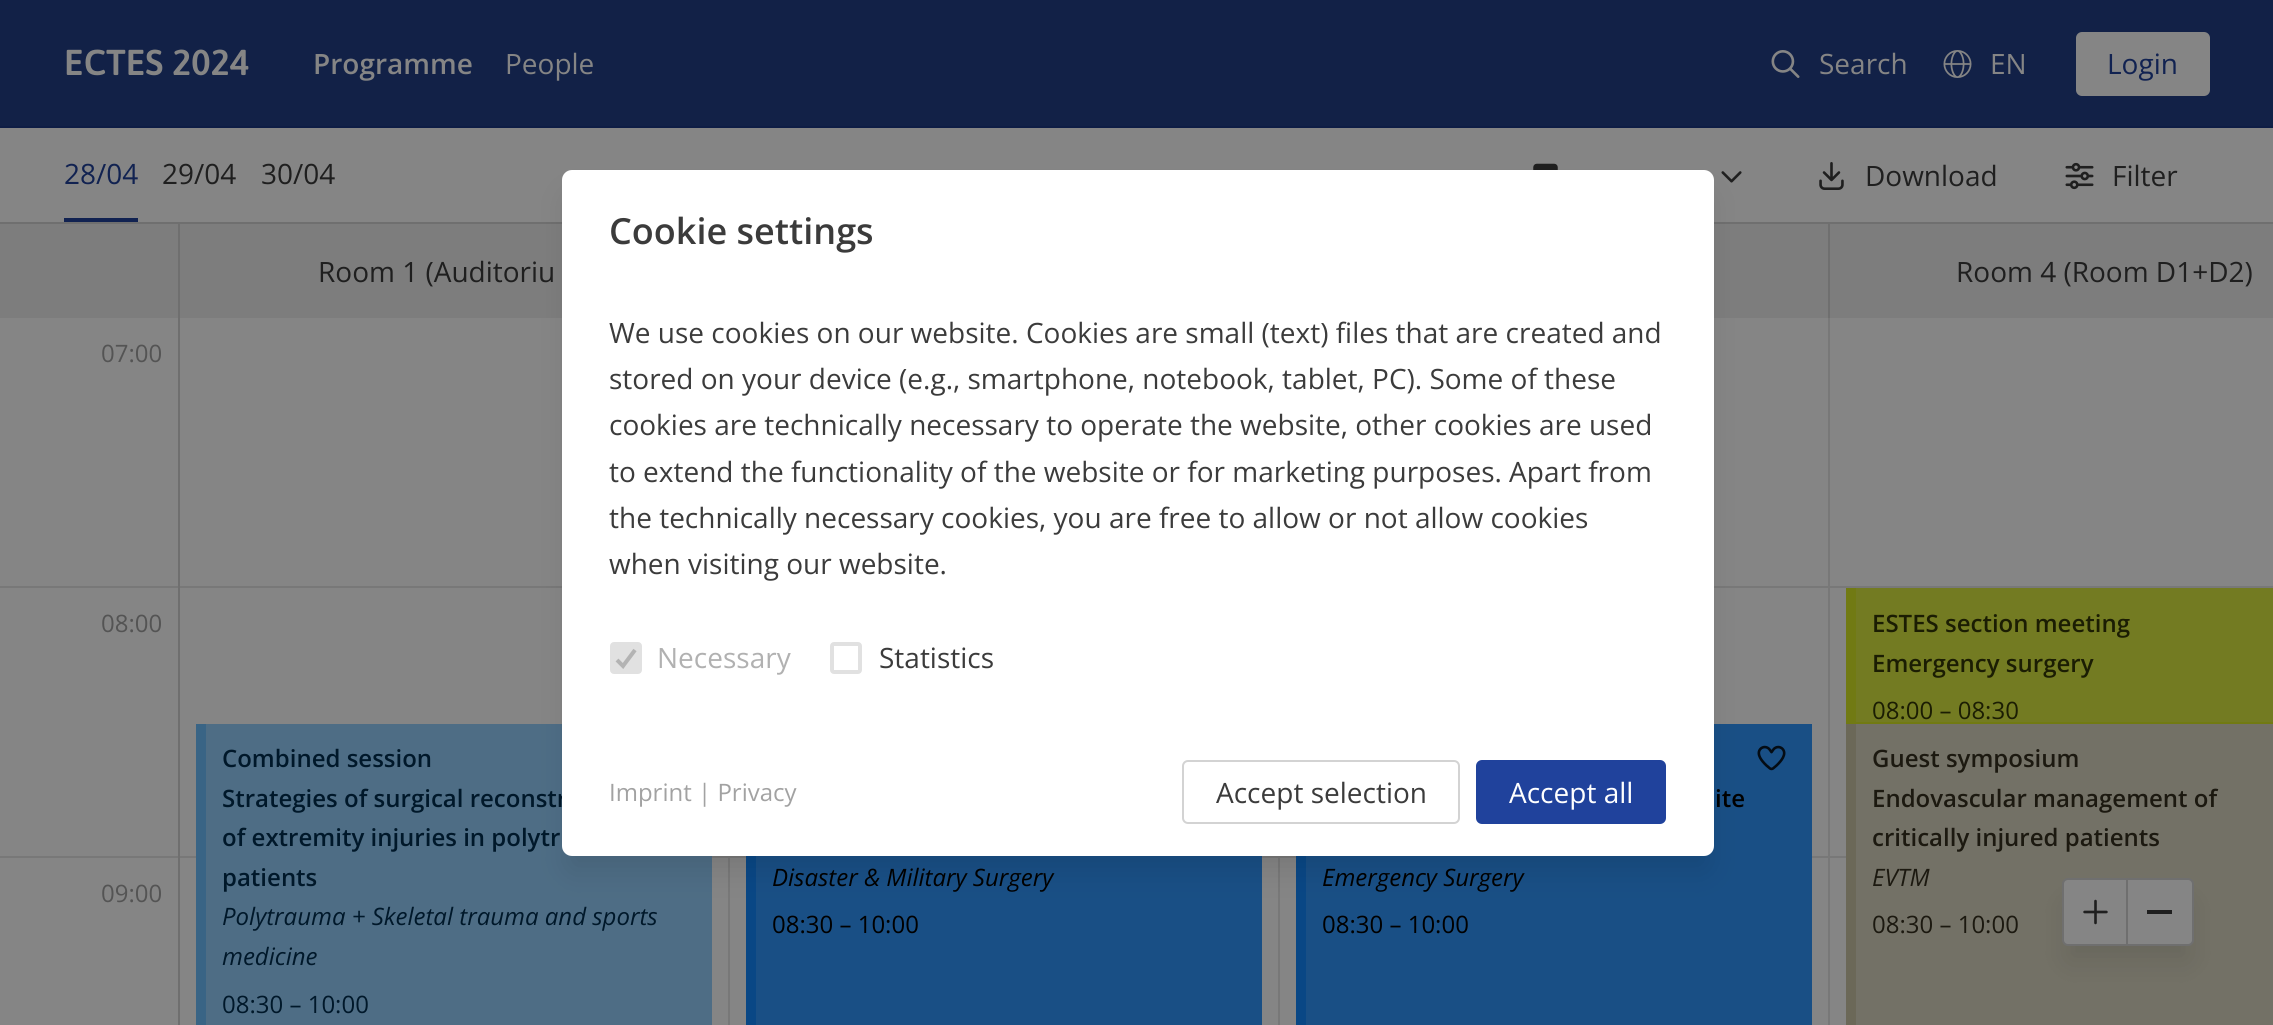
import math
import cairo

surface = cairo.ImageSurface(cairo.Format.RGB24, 2273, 1025)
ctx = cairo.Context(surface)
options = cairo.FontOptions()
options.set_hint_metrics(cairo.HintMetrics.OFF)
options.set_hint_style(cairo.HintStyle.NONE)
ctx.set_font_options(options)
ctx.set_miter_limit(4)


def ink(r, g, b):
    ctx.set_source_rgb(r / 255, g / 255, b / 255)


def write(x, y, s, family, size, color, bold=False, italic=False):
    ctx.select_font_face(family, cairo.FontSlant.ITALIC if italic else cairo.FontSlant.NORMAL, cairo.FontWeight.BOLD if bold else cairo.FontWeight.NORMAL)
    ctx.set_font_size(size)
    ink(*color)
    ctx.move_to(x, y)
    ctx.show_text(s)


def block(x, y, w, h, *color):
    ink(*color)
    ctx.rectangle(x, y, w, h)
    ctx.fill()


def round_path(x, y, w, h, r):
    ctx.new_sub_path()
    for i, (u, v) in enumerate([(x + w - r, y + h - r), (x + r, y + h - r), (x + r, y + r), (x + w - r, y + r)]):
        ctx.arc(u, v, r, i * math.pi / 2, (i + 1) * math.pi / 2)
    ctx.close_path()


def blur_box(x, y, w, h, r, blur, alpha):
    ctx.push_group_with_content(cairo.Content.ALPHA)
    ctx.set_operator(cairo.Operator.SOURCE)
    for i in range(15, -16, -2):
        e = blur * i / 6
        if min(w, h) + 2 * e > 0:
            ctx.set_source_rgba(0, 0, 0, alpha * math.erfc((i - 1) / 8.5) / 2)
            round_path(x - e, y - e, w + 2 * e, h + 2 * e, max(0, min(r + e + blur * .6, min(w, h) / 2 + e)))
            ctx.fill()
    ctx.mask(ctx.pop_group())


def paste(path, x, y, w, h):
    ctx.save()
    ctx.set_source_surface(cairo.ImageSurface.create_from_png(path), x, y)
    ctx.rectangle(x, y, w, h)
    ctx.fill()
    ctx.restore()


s1 = dict(family="Asap SemiBold", size=36, color=(133, 133, 133))
s2 = dict(family="Open Sans SemiBold", size=28, color=(133, 133, 133))
s3 = dict(family="Open Sans", size=28, color=(133, 133, 133))
s4 = dict(family="Open Sans", size=28, color=(17, 34, 81))
s5 = dict(family="Open Sans", size=28, color=(31, 31, 31))
s6 = dict(family="Open Sans", size=24, color=(84, 84, 84))
s7 = dict(family="Open Sans SemiBold", size=24, color=(0, 24, 42))
s8 = dict(family="Open Sans", size=24, color=(0, 24, 42), italic=True)
s9 = dict(family="Open Sans", size=24, color=(0, 24, 42))
s10 = dict(family="Open Sans", size=24, color=(0, 0, 0), italic=True)
s11 = dict(family="Open Sans", size=24, color=(0, 0, 0))
s12 = dict(family="Open Sans SemiBold", size=24, color=(0, 0, 0))
s13 = dict(family="Open Sans SemiBold", size=24, color=(27, 29, 3))
s14 = dict(family="Open Sans", size=24, color=(27, 29, 3))
s15 = dict(family="Open Sans SemiBold", size=24, color=(28, 25, 16))
s16 = dict(family="Open Sans", size=24, color=(28, 25, 16), italic=True)
s17 = dict(family="Open Sans", size=24, color=(28, 25, 16))
s18 = dict(family="Open Sans SemiBold", size=36, color=(59, 59, 59))
s19 = dict(family="Open Sans", size=28, color=(59, 59, 59))
s20 = dict(family="Open Sans", size=28, color=(177, 177, 177))
s21 = dict(family="Open Sans", size=24, color=(162, 162, 162))
s22 = dict(family="Open Sans", size=28, color=(255, 255, 255))

ink(133, 133, 133)
ctx.paint()
block(0, 0, 2273, 126, 18, 33, 71)
block(0, 126, 2273, 2, 14, 29, 69)
write(64, 75, "ECTES 2024", **s1)
write(313, 74, "Programme", **s2)
write(505, 74, "People", **s3)
paste("pic1.png", 1771, 50, 29, 28)
write(1819, 74, "Search", **s3)
paste("pic2.png", 1943, 50, 29, 28)
write(1990, 74, "EN", **s3)
round_path(2076, 32, 134, 64, 6)
ctx.fill()
write(2107, 74, "Login", **s4)
block(0, 222, 2273, 2, 111, 111, 111)
block(64, 218, 74, 4, 17, 34, 81)
write(64, 184, "28/04", **s4)
write(162, 184, "29/04", **s5)
write(261, 184, "30/04", **s5)
paste("pic3.png", 1533, 163, 25, 7)
paste("pic4.png", 1721, 171, 21, 12)
paste("pic5.png", 1819, 162, 25, 28)
write(1865, 186, "Download", **s5)
paste("pic6.png", 2065, 162, 29, 28)
write(2112, 186, "Filter", **s5)
block(0, 224, 2273, 94, 125, 125, 125)
block(178, 224, 2, 94, 111, 111, 111)
write(318, 282, "Room 1 (Auditoriu", **s5)
block(1828, 224, 2, 94, 111, 111, 111)
write(1956, 282, "Room 4 (Room D1+D2)", **s5)
block(178, 318, 2, 707, 111, 111, 111)
block(0, 586, 178, 2, 120, 120, 120)
write(101, 362, "07:00", **s6)
block(0, 856, 178, 2, 120, 120, 120)
write(101, 632, "08:00", **s6)
write(101, 902, "09:00", **s6)
block(728, 856, 2, 169, 120, 120, 120)
block(180, 586, 382, 2, 120, 120, 120)
block(180, 856, 548, 2, 120, 120, 120)
block(206, 724, 506, 301, 78, 109, 133)
block(196, 724, 10, 301, 57, 100, 133)
write(222, 767, "Combined session", **s7)
write(222, 807, "Strategies of surgical reconstr", **s7)
write(222, 846, "of extremity injuries in polytr", **s7)
write(222, 886, "patients", **s7)
write(222, 925, "Polytrauma + Skeletal trauma and sports", **s8)
write(222, 965, "medicine", **s8)
write(222, 1013, "08:30 – 10:00", **s9)
block(1278, 856, 2, 169, 120, 120, 120)
block(730, 856, 548, 2, 120, 120, 120)
block(756, 856, 506, 169, 25, 79, 133)
block(746, 856, 10, 169, 9, 71, 133)
write(772, 886, "Disaster & Military Surgery", **s10)
write(772, 933, "08:30 – 10:00", **s11)
block(1828, 318, 2, 707, 120, 120, 120)
block(1714, 586, 114, 2, 120, 120, 120)
block(1280, 856, 548, 2, 120, 120, 120)
block(1306, 724, 506, 301, 25, 79, 133)
block(1296, 856, 10, 169, 9, 71, 133)
paste("pic7.png", 1757, 745, 29, 26)
write(1715, 807, "ite", **s12)
write(1322, 886, "Emergency Surgery", **s10)
write(1322, 933, "08:30 – 10:00", **s11)
block(1830, 586, 443, 2, 120, 120, 120)
block(1830, 856, 16, 2, 120, 120, 120)
block(1856, 588, 417, 134, 115, 123, 34)
block(1856, 722, 417, 2, 113, 122, 19)
block(1846, 588, 10, 136, 113, 122, 19)
write(1872, 632, "ESTES section meeting", **s13)
write(1872, 672, "Emergency surgery", **s13)
write(1872, 719, "08:00 – 08:30", **s14)
block(1856, 724, 417, 301, 115, 113, 102)
block(1846, 724, 10, 301, 107, 104, 88)
write(1872, 767, "Guest symposium", **s15)
write(1872, 807, "Endovascular management of", **s15)
write(1872, 846, "critically injured patients", **s15)
write(1872, 886, "EVTM", **s16)
write(1872, 933, "08:30 – 10:00", **s17)
ink(0, 0, 0)
blur_box(2068, 904, 120, 56, 0, 15, 0.1)
ink(133, 133, 133)
round_path(2063, 879, 130, 66, 5)
ctx.fill_preserve()
ink(111, 111, 111)
ctx.stroke()
block(2126, 880, 2, 64, 111, 111, 111)
paste("pic8.png", 2083, 899, 25, 26)
block(2147, 910, 25, 4, 31, 31, 31)
ink(0, 0, 0)
blur_box(568, 196, 1140, 674, 4, 15, 0.1)
ink(255, 255, 255)
round_path(562, 170, 1152, 686, 10)
ctx.fill()
write(609, 244, "Cookie settings", **s18)
write(609, 343, "We use cookies on our website. Cookies are small (text) files that are created and", **s19)
write(609, 389, "stored on your device (e.g., smartphone, notebook, tablet, PC). Some of these", **s19)
write(609, 435, "cookies are technically necessary to operate the website, other cookies are used", **s19)
write(609, 482, "to extend the functionality of the website or for marketing purposes. Apart from", **s19)
write(609, 528, "the technically necessary cookies, you are free to allow or not allow cookies", **s19)
write(609, 574, "when visiting our website.", **s19)
ink(225, 225, 225)
round_path(612, 644, 28, 28, 2)
ctx.fill_preserve()
ctx.set_line_width(4)
ctx.stroke()
ctx.new_path()
ctx.move_to(617, 660)
ctx.line_to(623, 666)
ctx.line_to(635, 650)
ink(179, 179, 179)
ctx.stroke()
write(657, 668, "Necessary", **s20)
round_path(832, 644, 28, 28, 2)
ink(225, 225, 225)
ctx.stroke()
write(879, 668, "Statistics", **s19)
write(609, 801, "Imprint | Privacy", **s21)
round_path(1183, 761, 276, 62, 5)
ink(211, 211, 211)
ctx.set_line_width(2)
ctx.stroke()
write(1216, 803, "Accept selection", **s19)
ink(32, 66, 156)
round_path(1476, 760, 190, 64, 6)
ctx.fill()
write(1509, 803, "Accept all", **s22)
surface.write_to_png("screenshot.png")
